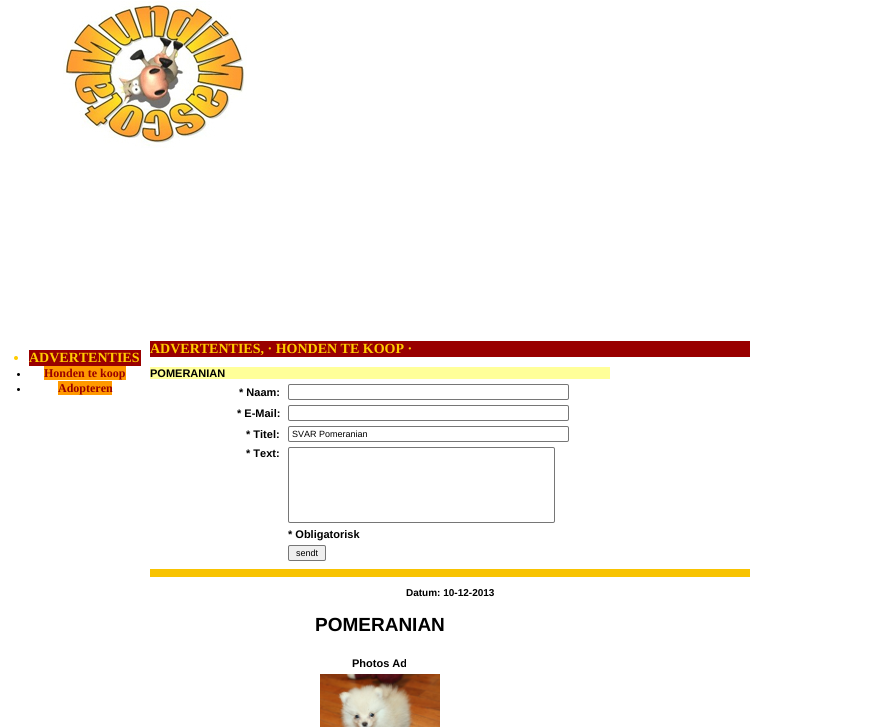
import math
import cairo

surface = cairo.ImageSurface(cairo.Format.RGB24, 877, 727)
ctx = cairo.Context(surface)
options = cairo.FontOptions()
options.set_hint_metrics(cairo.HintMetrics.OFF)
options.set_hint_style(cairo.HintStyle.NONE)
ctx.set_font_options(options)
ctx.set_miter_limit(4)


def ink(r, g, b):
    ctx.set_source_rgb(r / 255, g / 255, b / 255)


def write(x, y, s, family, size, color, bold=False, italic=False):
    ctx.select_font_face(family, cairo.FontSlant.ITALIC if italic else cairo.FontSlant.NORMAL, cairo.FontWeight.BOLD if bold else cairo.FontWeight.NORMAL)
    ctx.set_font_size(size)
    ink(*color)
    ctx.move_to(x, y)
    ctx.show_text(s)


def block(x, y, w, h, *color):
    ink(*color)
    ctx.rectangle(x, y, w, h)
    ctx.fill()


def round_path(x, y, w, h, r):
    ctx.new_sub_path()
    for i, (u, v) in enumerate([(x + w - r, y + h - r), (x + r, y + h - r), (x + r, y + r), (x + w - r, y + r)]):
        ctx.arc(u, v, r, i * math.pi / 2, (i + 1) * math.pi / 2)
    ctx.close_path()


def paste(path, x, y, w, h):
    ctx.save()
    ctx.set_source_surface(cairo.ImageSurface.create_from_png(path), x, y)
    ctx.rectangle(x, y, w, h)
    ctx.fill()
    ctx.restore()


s1 = dict(family="Liberation Serif", size=14, color=(255, 204, 0), bold=True)
s2 = dict(family="Liberation Serif", size=12, color=(153, 0, 0), bold=True)
s3 = dict(family="Liberation Sans", size=11, color=(0, 0, 0), bold=True)
s4 = dict(family="Liberation Sans", size=9, color=(0, 0, 0))
s5 = dict(family="Liberation Sans", size=10, color=(0, 0, 0), bold=True)
s6 = dict(family="Liberation Sans", size=19, color=(0, 0, 0), bold=True)

ink(255, 255, 255)
ctx.paint()
paste("pic1.png", 63, 1, 184, 147)
block(29, 350, 112, 16, 153, 0, 0)
ink(255, 204, 0)
ctx.arc(16, 358, 2, 0, 2 * math.pi)
ctx.fill()
write(29, 362, "ADVERTENTIES", **s1)
ink(0, 0, 0)
ctx.new_path()
ctx.arc(18.5, 374.5, 1.5, 0, 2 * math.pi)
ctx.fill()
block(44, 366, 82, 14, 255, 153, 0)
write(44, 377, "Honden te koop", **s2)
ink(0, 0, 0)
ctx.new_path()
ctx.arc(18.5, 389.5, 1.5, 0, 2 * math.pi)
ctx.fill()
block(58, 381, 54, 14, 255, 153, 0)
write(58, 392, "Adopteren", **s2)
block(150, 341, 600, 16, 153, 0, 0)
write(150, 353, "ADVERTENTIES, · HONDEN TE KOOP ·", **s1)
block(150, 367, 460, 12, 255, 255, 153)
write(150, 377, "POMERANIAN", **s3)
write(239, 396, "* Naam:", **s3)
round_path(288.5, 384.5, 280, 15, 1.5)
ink(118, 118, 118)
ctx.set_line_width(1)
ctx.stroke()
write(237, 417, "* E-Mail:", **s3)
round_path(288.5, 405.5, 280, 15, 1.5)
ink(118, 118, 118)
ctx.stroke()
write(246, 438, "* Titel:", **s3)
round_path(288.5, 426.5, 280, 15, 1.5)
ink(118, 118, 118)
ctx.stroke()
write(292, 437, "SVAR Pomeranian", **s4)
write(246, 457, "* Text:", **s3)
round_path(288.5, 447.5, 266, 75, 1.5)
ink(118, 118, 118)
ctx.stroke()
write(288, 538, "* Obligatorisk", **s3)
ink(239, 239, 239)
round_path(288.5, 545.5, 37, 15, 1.5)
ctx.fill_preserve()
ink(118, 118, 118)
ctx.stroke()
write(296, 556, "sendt", **s4)
block(150, 569, 600, 8, 248, 195, 1)
write(406, 596, "Datum: 10-12-2013", **s5)
write(315, 631, "POMERANIAN", **s6)
write(352, 667, "Photos Ad", **s3)
paste("pic2.png", 320, 674, 120, 53)
surface.write_to_png("screenshot.png")
